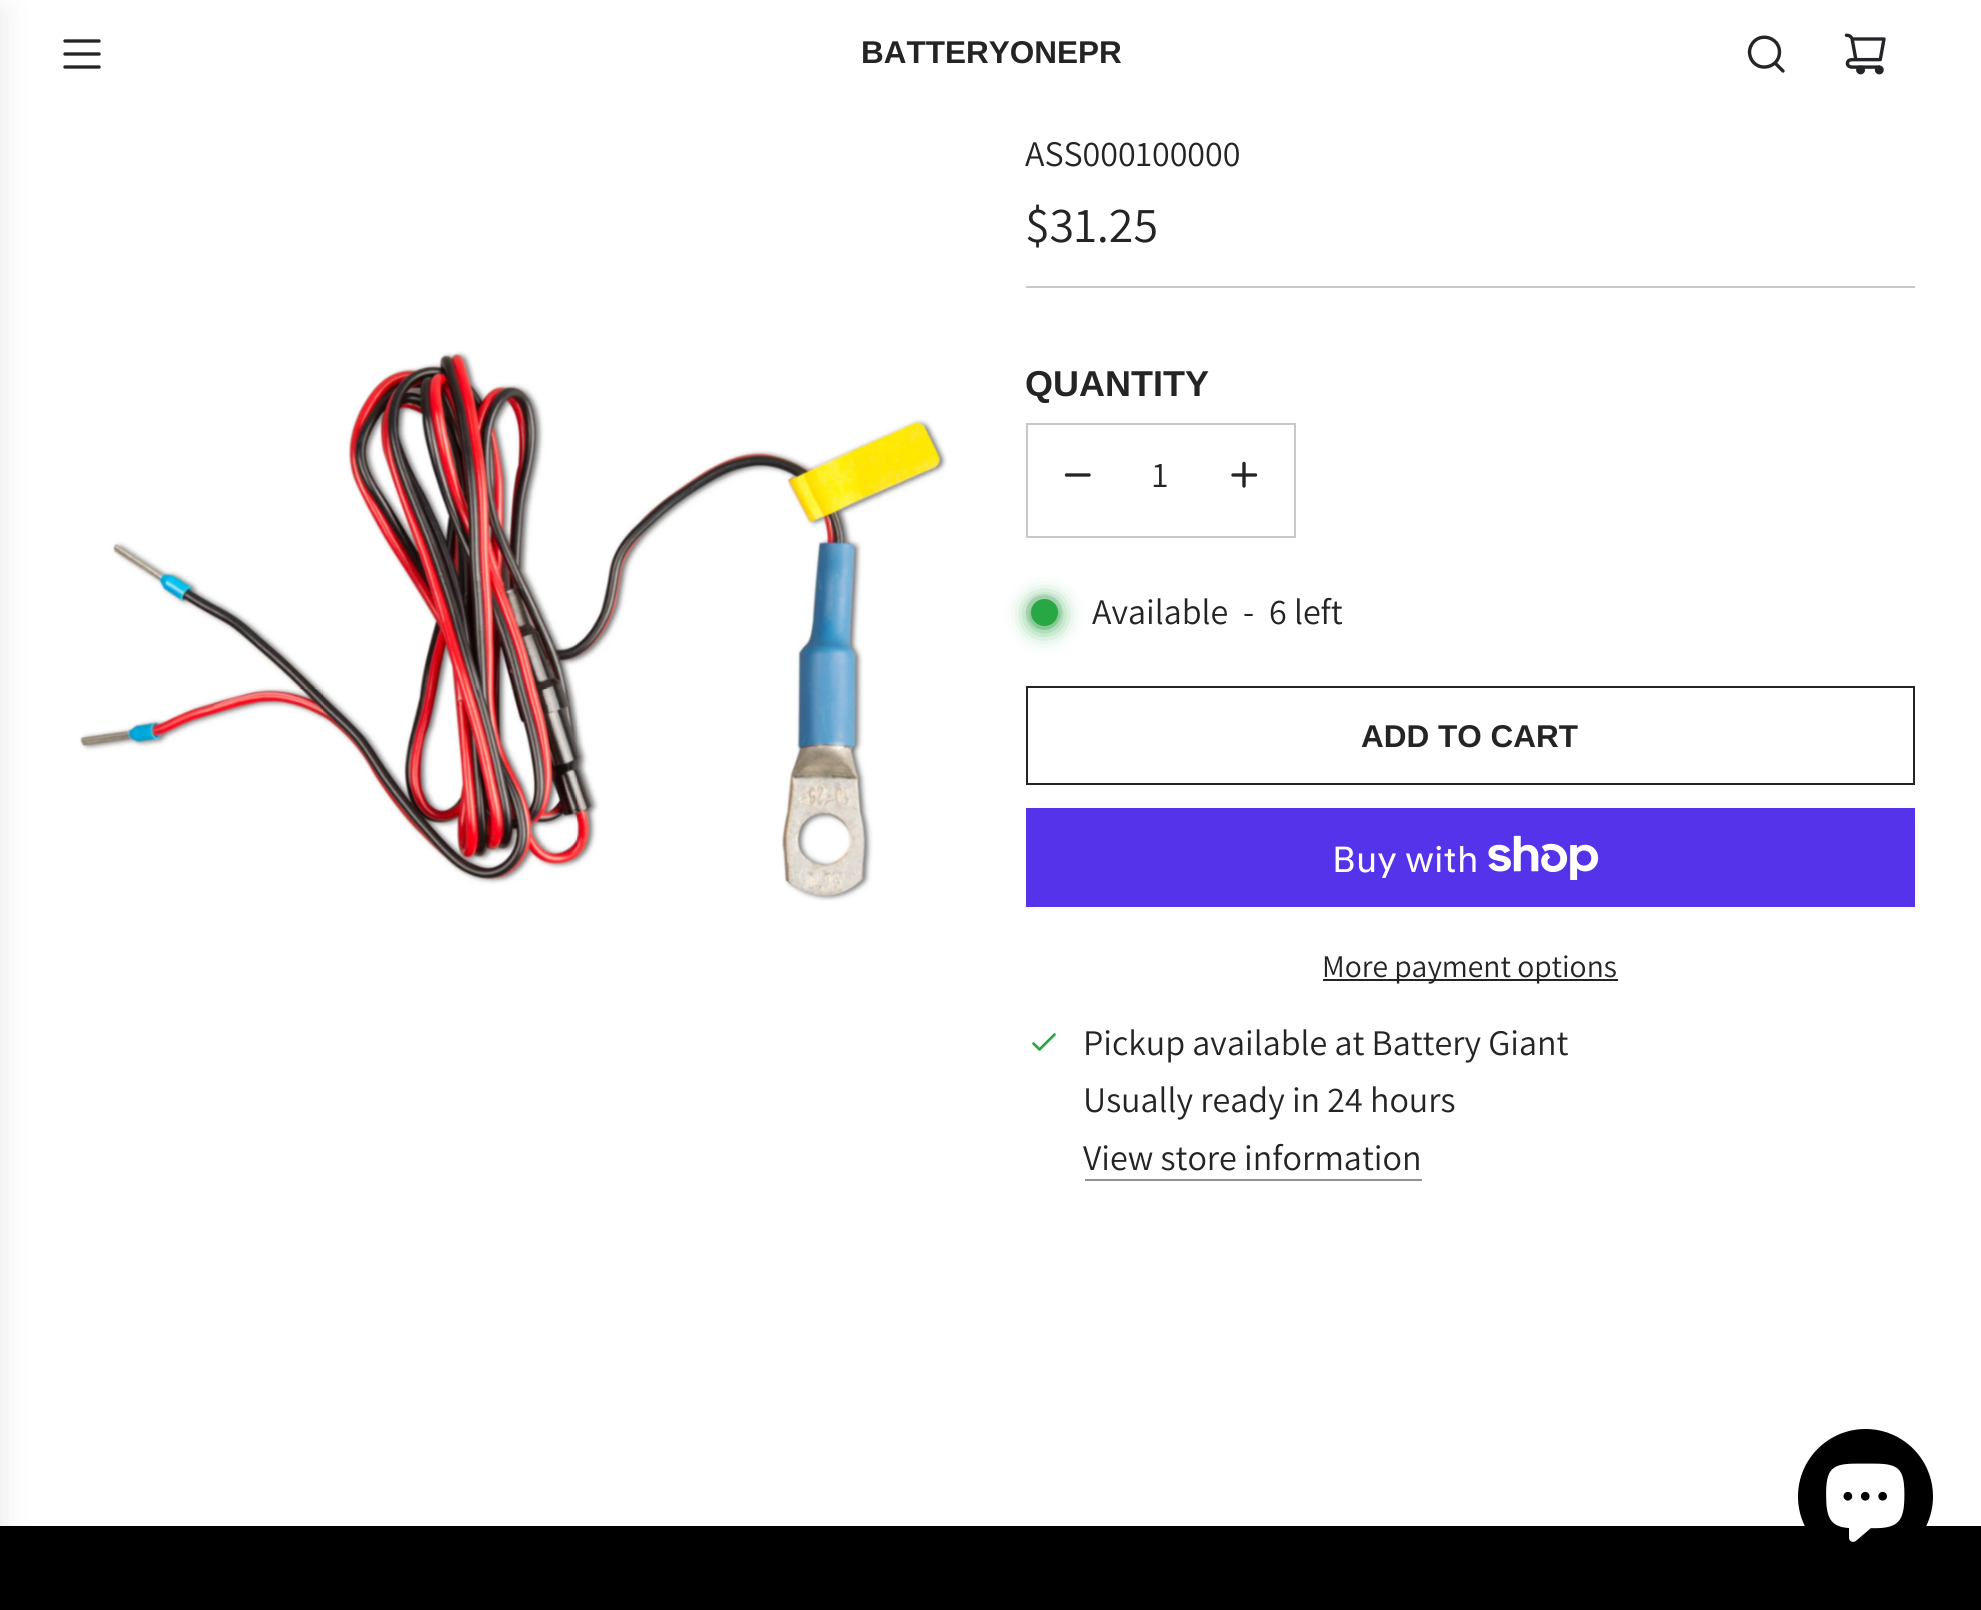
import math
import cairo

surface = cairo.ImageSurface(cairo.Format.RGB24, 1981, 1610)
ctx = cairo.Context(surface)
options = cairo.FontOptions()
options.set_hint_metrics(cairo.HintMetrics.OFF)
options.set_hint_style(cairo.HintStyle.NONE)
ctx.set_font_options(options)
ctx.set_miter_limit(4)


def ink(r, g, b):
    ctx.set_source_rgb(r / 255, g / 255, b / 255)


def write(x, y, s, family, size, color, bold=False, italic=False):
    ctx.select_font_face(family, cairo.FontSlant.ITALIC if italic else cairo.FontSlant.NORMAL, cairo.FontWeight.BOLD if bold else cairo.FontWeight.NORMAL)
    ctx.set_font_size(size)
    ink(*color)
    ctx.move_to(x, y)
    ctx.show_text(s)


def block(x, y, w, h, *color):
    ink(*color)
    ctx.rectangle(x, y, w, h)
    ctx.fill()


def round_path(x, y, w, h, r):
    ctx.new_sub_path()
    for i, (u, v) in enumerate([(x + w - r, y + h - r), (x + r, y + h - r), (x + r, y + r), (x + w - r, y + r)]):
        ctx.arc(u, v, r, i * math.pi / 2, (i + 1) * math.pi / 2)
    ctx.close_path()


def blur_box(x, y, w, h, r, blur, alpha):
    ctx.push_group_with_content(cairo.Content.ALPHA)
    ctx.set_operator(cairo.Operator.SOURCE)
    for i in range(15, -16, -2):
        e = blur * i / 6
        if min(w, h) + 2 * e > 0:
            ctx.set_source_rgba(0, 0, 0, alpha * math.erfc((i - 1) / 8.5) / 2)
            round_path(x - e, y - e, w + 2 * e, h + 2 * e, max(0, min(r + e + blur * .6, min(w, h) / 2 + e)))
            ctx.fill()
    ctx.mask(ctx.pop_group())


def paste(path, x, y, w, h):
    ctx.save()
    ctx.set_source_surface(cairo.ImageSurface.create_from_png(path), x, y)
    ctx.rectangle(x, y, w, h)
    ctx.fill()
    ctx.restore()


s1 = dict(family="Liberation Sans", size=31.5, color=(36, 36, 36), bold=True)
s2 = dict(family="Assistant", size=36, color=(36, 36, 36))
s3 = dict(family="Assistant", size=50, color=(36, 36, 36))
s4 = dict(family="Liberation Sans", size=36, color=(36, 36, 36), bold=True)
s5 = dict(family="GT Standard", size=36, color=(255, 255, 255))
s6 = dict(family="Assistant", size=31.5, color=(36, 36, 36))

ink(255, 255, 255)
ctx.paint()
block(0, 1526, 1981, 84, 0, 0, 0)
ink(0, 0, 0)
blur_box(-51, 11, 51, 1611, 0, 17, 0.1)
ctx.new_path()
ctx.move_to(65, 41)
ctx.line_to(99, 41)
ctx.move_to(65, 54)
ctx.line_to(99, 54)
ctx.move_to(65, 67)
ctx.line_to(99, 67)
ink(38, 36, 40)
ctx.set_line_width(3.4)
ctx.set_line_cap(cairo.LineCap.ROUND)
ctx.set_line_join(cairo.LineJoin.ROUND)
ctx.stroke()
write(861, 63, "BATTERYONEPR", **s1)
ctx.new_path()
ctx.move_to(1775.5, 63.5)
ctx.line_to(1783, 71)
ctx.move_to(1749.5, 52)
ctx.curve_to(1749.5, 55, 1750.5, 58, 1752, 60.5)
ctx.curve_to(1760, 72.5, 1779.5, 67, 1779.5, 52)
ctx.curve_to(1779.5, 37.5, 1760, 31.5, 1752, 44)
ctx.curve_to(1750.5, 46.5, 1749.5, 49, 1749.5, 52)
ctx.close_path()
ink(38, 36, 40)
ctx.stroke()
paste("pic1.png", 1844, 33, 42, 42)
paste("pic2.png", 79, 351, 868, 550)
write(1025, 166, "ASS000100000", **s2)
write(1025, 242, "$31.25", **s3)
block(1026, 286, 889, 2, 200, 200, 200)
write(1025, 396, "QUANTITY", **s4)
ctx.rectangle(1027, 424, 268, 113)
ink(200, 200, 200)
ctx.set_line_width(2)
ctx.set_line_cap(cairo.LineCap.BUTT)
ctx.set_line_join(cairo.LineJoin.MITER)
ctx.stroke()
ctx.new_path()
ctx.move_to(1066.5, 475)
ctx.line_to(1089, 475)
ink(36, 36, 36)
ctx.set_line_width(3.4)
ctx.set_line_cap(cairo.LineCap.ROUND)
ctx.set_line_join(cairo.LineJoin.ROUND)
ctx.stroke()
write(1152, 487, "1", **s2)
ctx.new_path()
ctx.move_to(1233, 475)
ctx.line_to(1244, 475)
ctx.move_to(1244, 475)
ctx.line_to(1255.5, 475)
ctx.move_to(1244, 475)
ctx.line_to(1244, 463.5)
ctx.move_to(1244, 475)
ctx.line_to(1244, 486)
ctx.stroke()
ink(233, 233, 233)
ctx.arc(1044, 612, 18, 0, 2 * math.pi)
ctx.fill()
ink(40, 167, 69)
blur_box(1031, 601, 27, 27, 13.5, 11, 1)
ink(40, 167, 69)
ctx.arc(1044.5, 612.5, 13.5, 0, 2 * math.pi)
ctx.fill()
write(1092, 624, "Available", **s2)
write(1243, 624, "-", **s2)
write(1269, 624, "6 left", **s2)
ctx.rectangle(1027, 687, 887, 97)
ctx.set_line_width(2)
ctx.set_line_cap(cairo.LineCap.BUTT)
ctx.set_line_join(cairo.LineJoin.MITER)
ctx.stroke()
write(1361, 747, "ADD TO CART", **s1)
block(1026, 808, 889, 99, 84, 51, 235)
write(1332, 872, "Buy with", **s5)
paste("pic3.png", 1488, 835, 111, 45)
block(1323, 979, 295, 2, 36, 36, 36)
write(1322, 977, "More payment options", **s6)
ctx.new_path()
ctx.move_to(1033.5, 1043.5)
ctx.line_to(1039.5, 1049.5)
ctx.line_to(1054.5, 1034.5)
ink(40, 167, 69)
ctx.set_line_width(2.7)
ctx.set_line_cap(cairo.LineCap.ROUND)
ctx.set_line_join(cairo.LineJoin.ROUND)
ctx.stroke()
write(1083, 1055, "Pickup available at Battery Giant", **s2)
write(1083, 1112, "Usually ready in 24 hours", **s2)
write(1083, 1170, "View store information", **s2)
block(1085, 1179, 337, 2, 146, 146, 146)
ink(0, 0, 0)
ctx.new_path()
ctx.arc(1865.5, 1496.5, 67.5, 0, 2 * math.pi)
ctx.fill()
paste("pic4.png", 1826, 1463, 79, 79)
surface.write_to_png("screenshot.png")
